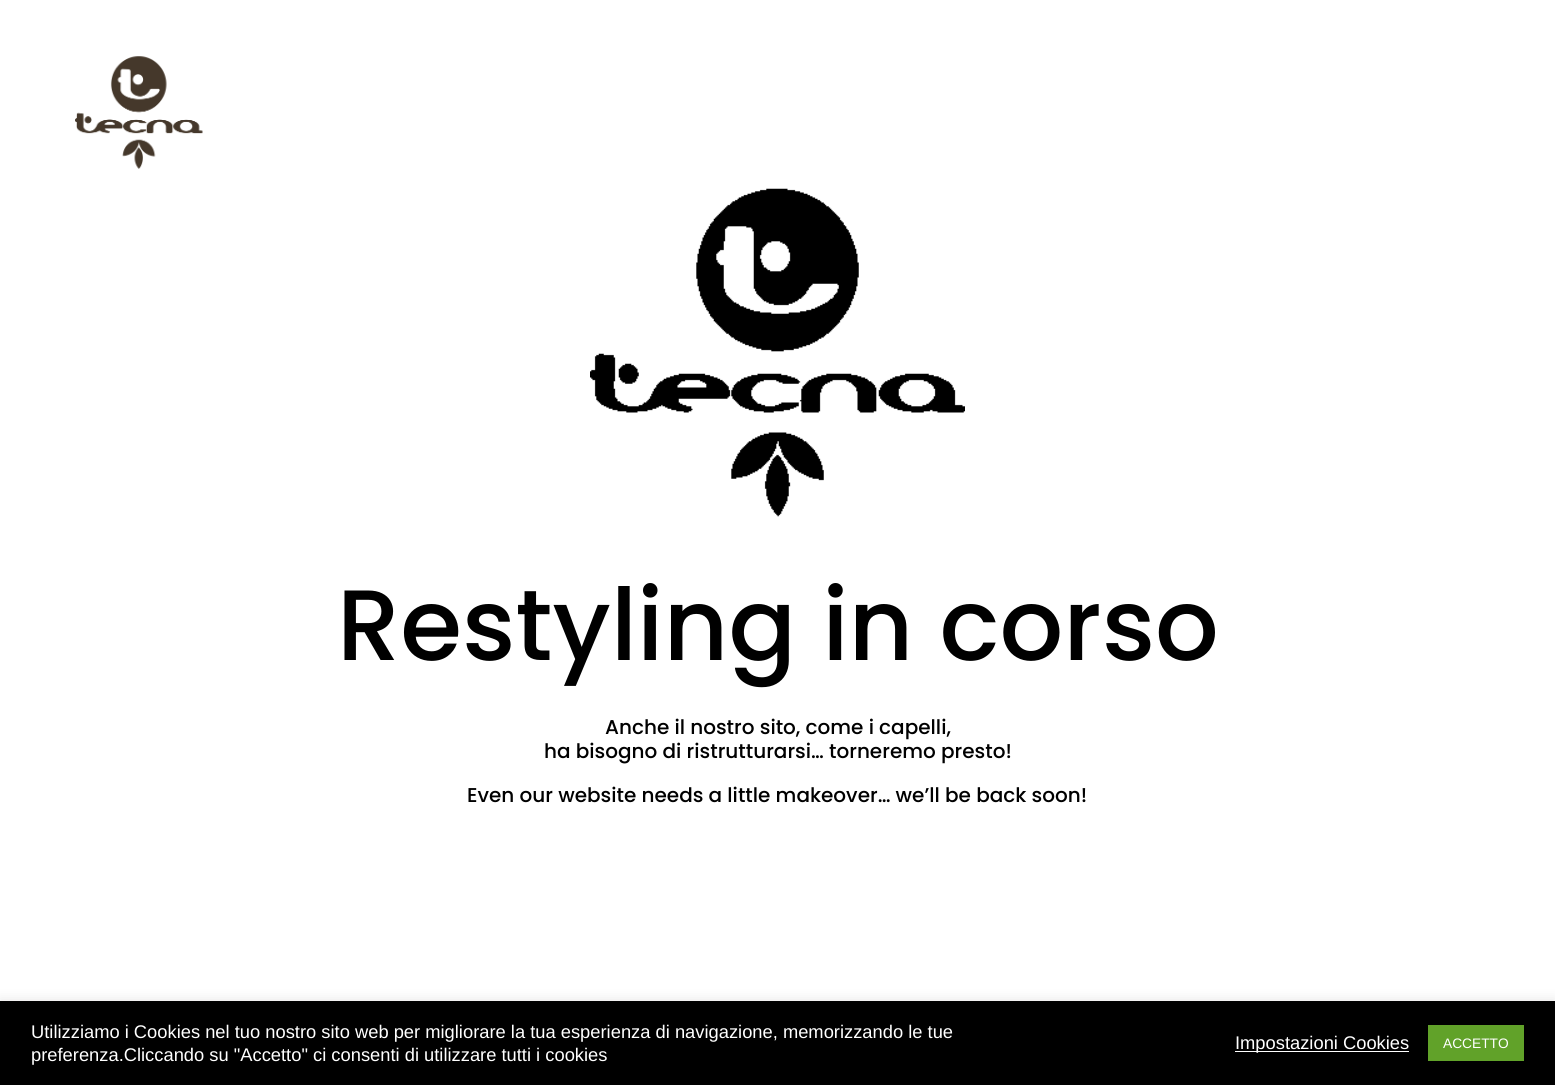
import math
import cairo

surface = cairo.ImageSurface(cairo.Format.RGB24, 1555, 1085)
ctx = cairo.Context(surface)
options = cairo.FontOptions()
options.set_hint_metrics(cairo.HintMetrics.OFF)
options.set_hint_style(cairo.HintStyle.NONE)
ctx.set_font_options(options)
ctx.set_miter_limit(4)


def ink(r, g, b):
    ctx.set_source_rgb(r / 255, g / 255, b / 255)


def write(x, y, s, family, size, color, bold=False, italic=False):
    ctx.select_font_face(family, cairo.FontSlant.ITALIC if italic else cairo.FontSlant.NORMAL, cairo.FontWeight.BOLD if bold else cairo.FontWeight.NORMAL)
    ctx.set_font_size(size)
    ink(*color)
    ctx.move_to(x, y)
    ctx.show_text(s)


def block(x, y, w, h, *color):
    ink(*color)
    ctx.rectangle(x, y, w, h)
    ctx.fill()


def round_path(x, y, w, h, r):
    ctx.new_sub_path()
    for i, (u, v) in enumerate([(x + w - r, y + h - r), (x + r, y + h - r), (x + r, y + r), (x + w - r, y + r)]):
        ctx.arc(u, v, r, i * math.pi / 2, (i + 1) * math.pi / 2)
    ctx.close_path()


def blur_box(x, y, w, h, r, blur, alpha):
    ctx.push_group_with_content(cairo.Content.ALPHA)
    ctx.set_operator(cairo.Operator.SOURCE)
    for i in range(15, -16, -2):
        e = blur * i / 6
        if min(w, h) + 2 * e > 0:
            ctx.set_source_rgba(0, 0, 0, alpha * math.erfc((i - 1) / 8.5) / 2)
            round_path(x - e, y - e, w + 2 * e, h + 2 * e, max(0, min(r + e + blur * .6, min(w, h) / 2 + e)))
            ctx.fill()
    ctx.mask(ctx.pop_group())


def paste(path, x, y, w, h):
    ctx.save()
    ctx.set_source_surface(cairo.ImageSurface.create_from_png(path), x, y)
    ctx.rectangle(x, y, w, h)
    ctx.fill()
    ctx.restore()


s1 = dict(family="Poppins Medium", size=100, color=(0, 0, 0))
s2 = dict(family="Poppins Medium", size=20, color=(0, 0, 0))
s3 = dict(family="Liberation Sans", size=18.33, color=(255, 255, 255))
s4 = dict(family="Liberation Sans", size=13.75, color=(255, 255, 255))

ink(255, 255, 255)
ctx.paint()
paste("pic1.png", 75, 56, 128, 113)
paste("pic2.png", 590, 188, 375, 329)
write(337, 660, "Restyling in corso", **s1)
write(605, 734, "Anche il nostro sito, come i capelli,", **s2)
write(544, 758, "ha bisogno di ristrutturarsi… torneremo presto!", **s2)
write(467, 802, "Even our website needs a little makeover… we’ll be back soon!", **s2)
ink(172, 171, 171)
blur_box(0, 1000, 1555, 84, 0, 6, 0.3)
block(0, 1001, 1555, 84, 0, 0, 0)
write(31, 1038, "Utilizziamo i Cookies nel tuo nostro sito web per migliorare la tua esperienza di navigazione, memorizzando le tue", **s3)
write(31, 1061, "preferenza.Cliccando su \"Accetto\" ci consenti di utilizzare tutti i cookies", **s3)
block(1235, 1051, 174, 1, 255, 255, 255)
write(1235, 1049, "Impostazioni Cookies", **s3)
block(1428, 1025, 96, 36, 97, 162, 41)
write(1443, 1048, "ACCETTO", **s4)
surface.write_to_png("screenshot.png")
